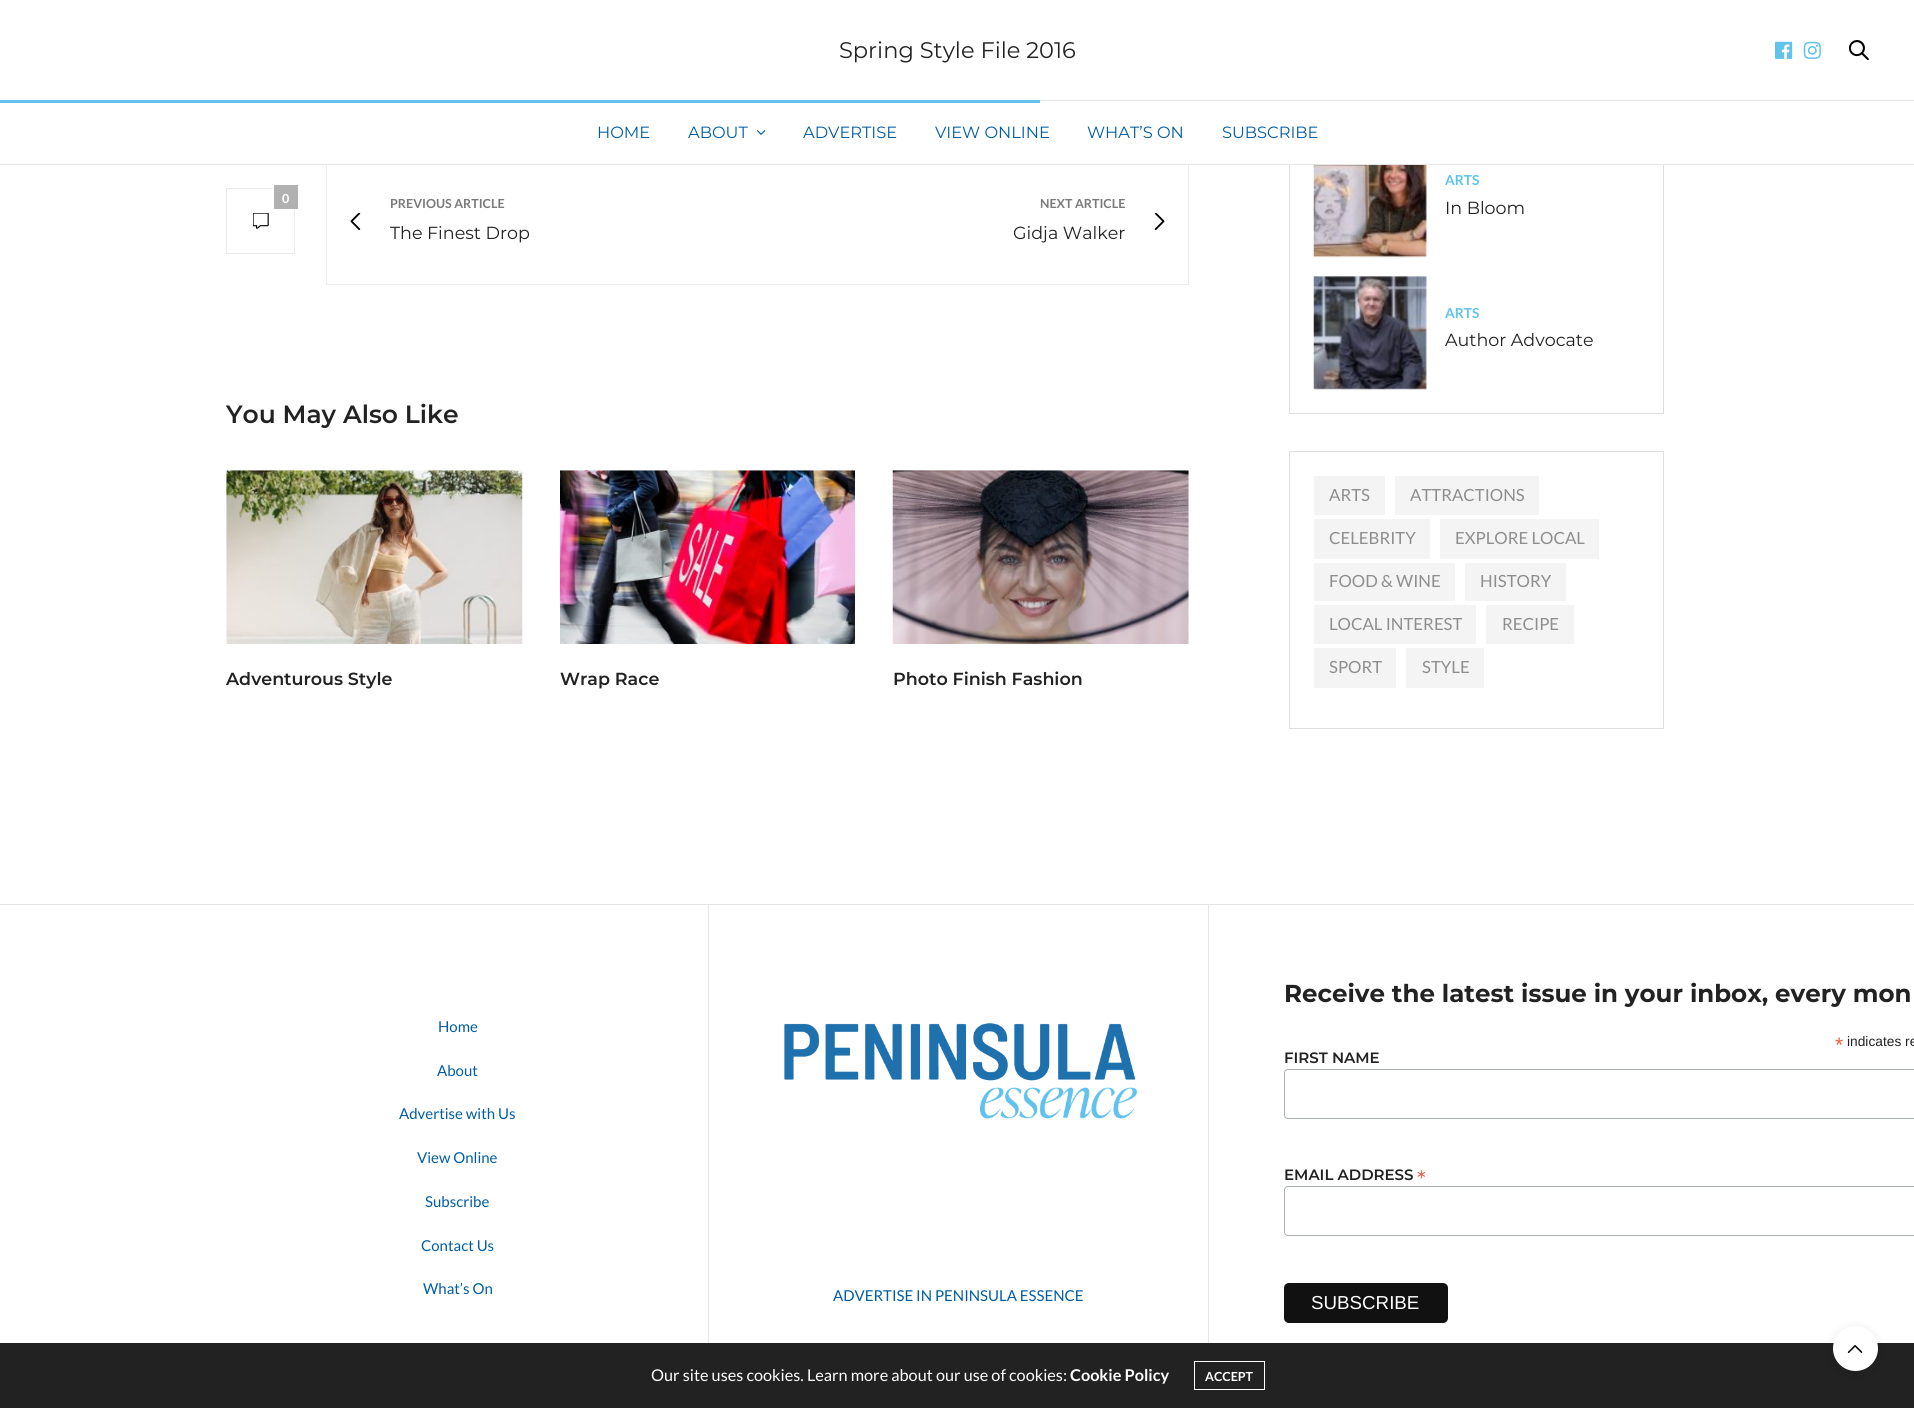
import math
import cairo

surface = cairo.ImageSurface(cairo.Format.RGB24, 1914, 1408)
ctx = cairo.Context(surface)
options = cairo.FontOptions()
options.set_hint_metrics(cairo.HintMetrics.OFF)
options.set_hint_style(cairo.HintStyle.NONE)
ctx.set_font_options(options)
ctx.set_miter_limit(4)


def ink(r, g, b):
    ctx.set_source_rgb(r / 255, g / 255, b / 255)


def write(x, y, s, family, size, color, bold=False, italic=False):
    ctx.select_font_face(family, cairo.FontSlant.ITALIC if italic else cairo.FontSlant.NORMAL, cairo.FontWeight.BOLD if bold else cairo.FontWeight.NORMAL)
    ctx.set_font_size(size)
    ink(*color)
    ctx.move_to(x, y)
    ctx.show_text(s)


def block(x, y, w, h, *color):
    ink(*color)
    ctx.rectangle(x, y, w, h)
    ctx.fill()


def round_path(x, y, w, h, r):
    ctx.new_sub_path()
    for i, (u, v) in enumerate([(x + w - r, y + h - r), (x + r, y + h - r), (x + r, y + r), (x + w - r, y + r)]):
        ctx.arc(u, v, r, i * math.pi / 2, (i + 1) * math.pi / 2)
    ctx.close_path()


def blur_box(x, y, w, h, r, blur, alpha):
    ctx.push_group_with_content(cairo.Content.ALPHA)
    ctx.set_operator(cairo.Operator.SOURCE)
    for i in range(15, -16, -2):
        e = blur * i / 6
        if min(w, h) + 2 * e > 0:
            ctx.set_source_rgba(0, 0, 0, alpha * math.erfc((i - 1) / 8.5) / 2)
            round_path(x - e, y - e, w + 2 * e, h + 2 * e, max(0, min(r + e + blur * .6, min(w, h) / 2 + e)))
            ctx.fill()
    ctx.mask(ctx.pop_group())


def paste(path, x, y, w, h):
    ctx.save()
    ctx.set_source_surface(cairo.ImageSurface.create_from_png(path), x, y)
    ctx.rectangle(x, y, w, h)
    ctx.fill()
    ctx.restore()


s1 = dict(family="Montserrat Thin", size=22.5, color=(34, 34, 34))
s2 = dict(family="Montserrat Thin", size=16.25, color=(0, 93, 164))
s3 = dict(family="Lato", size=12.5, color=(255, 255, 255), bold=True)
s4 = dict(family="Lato", size=12.5, color=(122, 122, 122), bold=True)
s5 = dict(family="Montserrat Thin", size=17.5, color=(34, 34, 34))
s6 = dict(family="Montserrat SemiBold", size=25, color=(34, 34, 34))
s7 = dict(family="Montserrat SemiBold", size=17.5, color=(34, 34, 34))
s8 = dict(family="Lato", size=13.75, color=(97, 194, 238), bold=True)
s9 = dict(family="Lato", size=16.75, color=(142, 142, 142))
s10 = dict(family="Lato", size=15, color=(0, 93, 164))
s11 = dict(family="Montserrat", size=24.5, color=(34, 34, 34), bold=True)
s12 = dict(family="Liberation Sans", size=21, color=(232, 92, 65))
s13 = dict(family="Liberation Sans", size=13.75, color=(34, 34, 34))
s14 = dict(family="Montserrat SemiBold", size=15, color=(34, 34, 34))
s15 = dict(family="Montserrat Thin", size=22.5, color=(232, 92, 65))
s16 = dict(family="Liberation Sans", size=18.75, color=(255, 255, 255))
s17 = dict(family="Lato", size=16.25, color=(255, 255, 255))
s18 = dict(family="Lato", size=16.25, color=(255, 255, 255), bold=True)

ink(255, 255, 255)
ctx.paint()
ctx.rectangle(326.5, 158.5, 862, 126)
ink(237, 237, 237)
ctx.set_line_width(1)
ctx.stroke()
ctx.rectangle(1289.5, -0.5, 374, 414)
ink(222, 222, 222)
ctx.stroke()
block(326, 0, 1338, 164, 255, 255, 255)
block(1040, 100, 874, 1, 230, 230, 230)
write(839, 58, "Spring Style File 2016", **s1)
paste("pic1.png", 1775, 41, 18, 18)
paste("pic2.png", 1803, 41, 18, 18)
paste("pic3.png", 1849, 40, 20, 20)
block(0, 100, 1040, 3, 97, 194, 238)
block(0, 164, 1914, 1, 230, 230, 230)
write(597, 138, "HOME", **s2)
write(688, 138, "ABOUT", **s2)
paste("pic4.png", 756, 130, 10, 5)
write(803, 138, "ADVERTISE", **s2)
write(935, 138, "VIEW ONLINE", **s2)
write(1087, 138, "WHAT’S ON", **s2)
write(1222, 138, "SUBSCRIBE", **s2)
ctx.rectangle(226.5, 188.5, 68, 65)
ink(234, 234, 234)
ctx.stroke()
block(274, 185, 24, 24, 177, 177, 177)
block(294, 209, 4, 1, 255, 255, 255)
block(273, 185, 1, 4, 255, 255, 255)
write(282, 203, "0", **s3)
paste("pic5.png", 253, 213, 16, 16)
write(390, 208, "PREVIOUS ARTICLE", **s4)
paste("pic6.png", 350, 213, 11, 17)
write(390, 239, "The Finest Drop", **s5)
write(1040, 208, "NEXT ARTICLE", **s4)
paste("pic7.png", 1154, 213, 11, 17)
write(1013, 239, "Gidja Walker", **s5)
write(226, 423, "You May Also Like", **s6)
paste("pic8.png", 226, 470, 297, 174)
write(226, 685, "Adventurous Style", **s7)
paste("pic9.png", 560, 470, 295, 174)
write(560, 685, "Wrap Race", **s7)
paste("pic10.png", 892, 470, 297, 174)
write(893, 685, "Photo Finish Fashion", **s7)
paste("pic11.png", 1313, 165, 114, 93)
write(1445, 185, "ARTS", **s8)
write(1445, 214, "In Bloom", **s5)
paste("pic12.png", 1313, 276, 114, 114)
write(1445, 318, "ARTS", **s8)
write(1445, 346, "Author Advocate", **s5)
ctx.rectangle(1289.5, 451.5, 374, 277)
ink(222, 222, 222)
ctx.stroke()
block(1314, 476, 71, 39, 244, 244, 244)
write(1329, 501, "ARTS", **s9)
block(1395, 476, 144, 39, 244, 244, 244)
write(1410, 501, "ATTRACTIONS", **s9)
block(1314, 519, 116, 40, 244, 244, 244)
write(1329, 544, "CELEBRITY", **s9)
block(1440, 519, 159, 40, 244, 244, 244)
write(1455, 544, "EXPLORE LOCAL", **s9)
block(1314, 563, 141, 38, 244, 244, 244)
write(1329, 587, "FOOD & WINE", **s9)
block(1465, 563, 101, 38, 244, 244, 244)
write(1480, 587, "HISTORY", **s9)
block(1314, 605, 162, 39, 244, 244, 244)
write(1329, 630, "LOCAL INTEREST", **s9)
block(1486, 605, 88, 39, 244, 244, 244)
write(1502, 630, "RECIPE", **s9)
block(1314, 648, 82, 40, 244, 244, 244)
write(1329, 673, "SPORT", **s9)
block(1406, 648, 78, 40, 244, 244, 244)
write(1422, 673, "STYLE", **s9)
block(0, 904, 1914, 1, 230, 230, 230)
write(438, 1032, "Home", **s10)
write(437, 1076, "About", **s10)
write(399, 1119, "Advertise with Us", **s10)
write(417, 1163, "View Online", **s10)
write(425, 1207, "Subscribe", **s10)
write(421, 1251, "Contact Us", **s10)
write(423, 1294, "What’s On", **s10)
block(708, 905, 1, 438, 230, 230, 230)
paste("pic13.png", 784, 1023, 353, 96)
write(833, 1301, "ADVERTISE IN PENINSULA ESSENCE", **s10)
block(1208, 905, 1, 438, 230, 230, 230)
write(1284, 1002, "Receive the latest issue in your inbox, every mon", **s11)
write(1835, 1052, "*", **s12)
write(1847, 1046, "indicates re", **s13)
write(1284, 1063, "FIRST NAME", **s14)
round_path(1284.5, 1069.5, 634, 49, 3.5)
ink(171, 176, 178)
ctx.stroke()
write(1284, 1180, "EMAIL ADDRESS", **s14)
write(1417, 1187, "*", **s15)
round_path(1284.5, 1186.5, 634, 49, 3.5)
ink(171, 176, 178)
ctx.stroke()
ink(17, 17, 17)
round_path(1284, 1283, 164, 40, 5)
ctx.fill()
write(1311, 1309, "SUBSCRIBE", **s16)
block(0, 1343, 1914, 65, 34, 34, 34)
write(651, 1381, "Our site uses cookies. Learn more about our use of cookies:", **s17)
write(1070, 1381, "Cookie Policy", **s18)
ctx.rectangle(1194.5, 1361.5, 70, 28)
ctx.stroke()
write(1205, 1381, "ACCEPT", **s3)
ink(0, 0, 0)
blur_box(1833, 1329, 45, 45, 22.5, 5, 0.1)
ink(255, 255, 255)
ctx.arc(1855.5, 1348.5, 22.5, 0, 2 * math.pi)
ctx.fill()
paste("pic14.png", 1847, 1345, 16, 9)
surface.write_to_png("screenshot.png")
